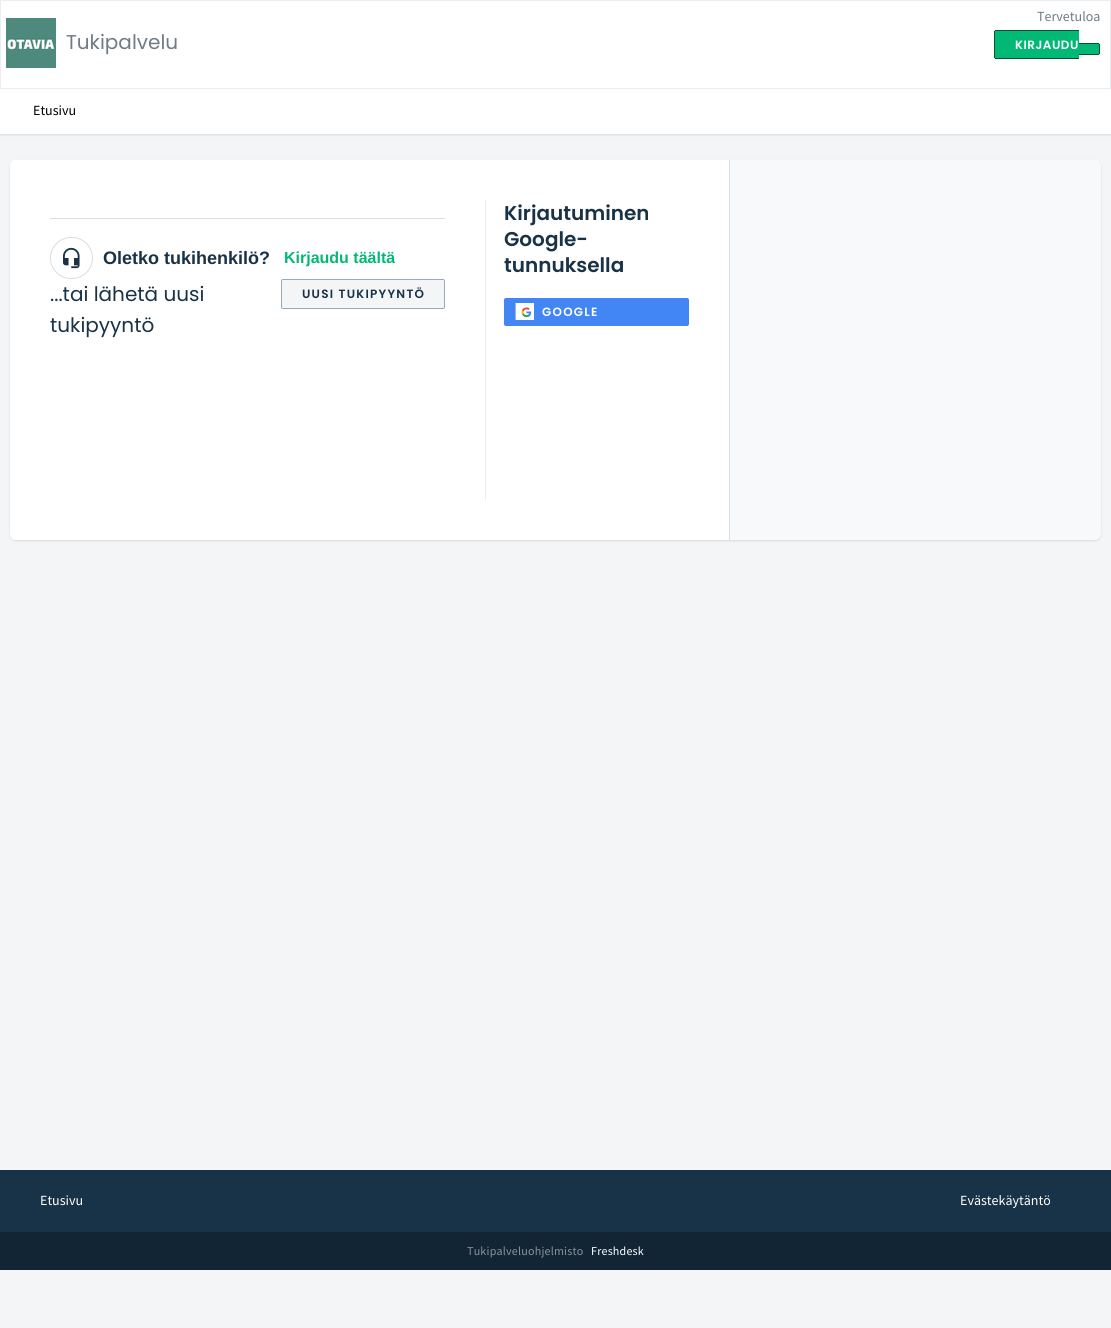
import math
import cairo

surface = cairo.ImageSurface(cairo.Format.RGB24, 1111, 1328)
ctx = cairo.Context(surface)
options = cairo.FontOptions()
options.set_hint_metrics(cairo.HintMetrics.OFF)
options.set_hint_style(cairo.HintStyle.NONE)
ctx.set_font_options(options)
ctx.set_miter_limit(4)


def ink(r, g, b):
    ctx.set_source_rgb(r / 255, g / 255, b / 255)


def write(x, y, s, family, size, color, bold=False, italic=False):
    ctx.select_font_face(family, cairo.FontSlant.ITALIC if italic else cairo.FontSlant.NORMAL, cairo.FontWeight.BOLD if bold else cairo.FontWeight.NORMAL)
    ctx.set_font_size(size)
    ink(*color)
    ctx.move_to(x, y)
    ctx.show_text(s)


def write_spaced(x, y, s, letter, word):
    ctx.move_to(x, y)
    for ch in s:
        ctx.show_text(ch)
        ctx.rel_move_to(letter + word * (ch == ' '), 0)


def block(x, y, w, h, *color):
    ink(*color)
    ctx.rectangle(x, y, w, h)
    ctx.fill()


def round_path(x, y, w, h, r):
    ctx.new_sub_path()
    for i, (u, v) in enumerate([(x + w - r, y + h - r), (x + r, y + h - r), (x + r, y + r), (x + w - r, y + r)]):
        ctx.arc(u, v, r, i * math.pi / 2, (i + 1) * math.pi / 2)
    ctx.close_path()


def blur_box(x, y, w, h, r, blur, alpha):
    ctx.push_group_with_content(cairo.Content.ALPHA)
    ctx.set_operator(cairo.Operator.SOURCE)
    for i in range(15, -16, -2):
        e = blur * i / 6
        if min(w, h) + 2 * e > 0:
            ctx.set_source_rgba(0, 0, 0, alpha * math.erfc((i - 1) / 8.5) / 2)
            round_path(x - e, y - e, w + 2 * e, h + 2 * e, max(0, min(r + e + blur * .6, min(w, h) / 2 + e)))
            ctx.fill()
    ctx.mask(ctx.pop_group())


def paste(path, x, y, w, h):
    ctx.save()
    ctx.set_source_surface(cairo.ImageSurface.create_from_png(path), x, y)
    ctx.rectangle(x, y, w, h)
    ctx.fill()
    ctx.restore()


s1 = dict(family="Poppins", size=20, color=(111, 124, 135))
s2 = dict(family="Source Sans Pro", size=14, color=(111, 124, 135))
s3 = dict(family="Source Sans Pro", size=14, color=(0, 0, 0))
s4 = dict(family="Liberation Sans", size=18, color=(24, 50, 71), bold=True)
s5 = dict(family="Liberation Sans", size=16, color=(2, 184, 117), bold=True)
s6 = dict(family="Poppins", size=20, color=(24, 50, 71))
s7 = dict(family="Poppins SemiBold", size=20, color=(24, 50, 71))
s8 = dict(family="Source Sans Pro", size=14, color=(255, 255, 255))

ink(243, 245, 247)
ctx.paint()
ink(255, 255, 255)
ctx.rectangle(0.5, 0.5, 1110, 88)
ctx.fill_preserve()
ink(235, 238, 240)
ctx.set_line_width(1)
ctx.stroke()
paste("pic1.png", 6, 18, 50, 50)
write(66, 49, "Tukipalvelu", **s1)
write(1037, 21, "Tervetuloa", **s2)
ink(2, 184, 117)
ctx.new_path()
ctx.move_to(996, 30)
ctx.line_to(1079, 30)
ctx.line_to(1079, 59)
ctx.line_to(996, 59)
ctx.curve_to(995, 59, 994, 58, 994, 57)
ctx.line_to(994, 32)
ctx.curve_to(994, 31, 995, 30, 996, 30)
ctx.close_path()
ctx.fill()
ctx.select_font_face("Poppins SemiBold")
ctx.set_font_size(12)
ink(255, 255, 255)
write_spaced(1015, 49, "KIRJAUDU", 0.5, 0)
block(995, 30, 84, 1, 1, 83, 53)
block(995, 58, 84, 1, 1, 83, 53)
block(994, 31, 1, 27, 1, 83, 53)
ink(2, 184, 117)
ctx.new_path()
ctx.move_to(1079, 43)
ctx.line_to(1098, 43)
ctx.curve_to(1099, 43, 1100, 44, 1100, 45)
ctx.line_to(1100, 53)
ctx.curve_to(1100, 54, 1099, 55, 1098, 55)
ctx.line_to(1079, 55)
ctx.close_path()
ctx.fill()
block(1079, 43, 20, 1, 1, 83, 53)
block(1099, 44, 1, 10, 1, 83, 53)
block(1079, 54, 20, 1, 1, 83, 53)
ink(63, 63, 68)
blur_box(0, 90, 1111, 45, 0, 1, 0.15)
block(0, 89, 1111, 45, 255, 255, 255)
write(33, 115, "Etusivu", **s3)
ink(63, 63, 68)
blur_box(10, 161, 1091, 380, 6, 1, 0.15)
ink(248, 249, 250)
round_path(10, 160, 1091, 380, 6)
ctx.fill()
ink(255, 255, 255)
ctx.new_path()
ctx.move_to(16, 160)
ctx.line_to(730, 160)
ctx.line_to(730, 540)
ctx.line_to(16, 540)
ctx.curve_to(12.5, 540, 10, 537.5, 10, 534)
ctx.line_to(10, 166)
ctx.curve_to(10, 162.5, 12.5, 160, 16, 160)
ctx.close_path()
ctx.fill()
block(729, 160, 1, 380, 218, 223, 227)
block(50, 218, 395, 1, 221, 221, 221)
round_path(50.5, 237.5, 42, 41, 20.5)
ctx.stroke()
paste("pic2.png", 63, 247, 17, 22)
write(103, 264, "Oletko tukihenkilö?", **s4)
write(284, 263, "Kirjaudu täältä", **s5)
write(50, 301, "...tai lähetä uusi", **s6)
write(50, 332, "tukipyyntö", **s6)
ink(243, 245, 247)
round_path(281.5, 279.5, 163, 29, 1.5)
ctx.fill_preserve()
ink(151, 169, 186)
ctx.stroke()
ctx.select_font_face("Poppins SemiBold")
ctx.set_font_size(12)
ink(24, 50, 71)
write_spaced(302, 298, "UUSI TUKIPYYNTÖ", 1.25, 0)
block(485, 200, 1, 300, 235, 238, 240)
write(504, 220, "Kirjautuminen", **s7)
write(504, 246, "Google-", **s7)
write(504, 272, "tunnuksella", **s7)
ink(66, 133, 244)
round_path(504, 298, 185, 28, 2)
ctx.fill()
paste("pic3.png", 515, 303, 19, 17)
ctx.set_font_size(12)
ink(255, 255, 255)
write_spaced(542, 316, "GOOGLE", 1.25, 0)
block(0, 1170, 1111, 62, 24, 50, 71)
write(40, 1205, "Etusivu", **s8)
write(960, 1205, "Evästekäytäntö", **s8)
block(0, 1232, 1111, 38, 18, 37, 52)
ctx.set_font_size(12)
ink(137, 146, 154)
write_spaced(467, 1255, "Tukipalveluohjelmisto", 0.2, 0)
ink(255, 255, 255)
write_spaced(591, 1255, "Freshdesk", 0.2, 0)
surface.write_to_png("screenshot.png")
